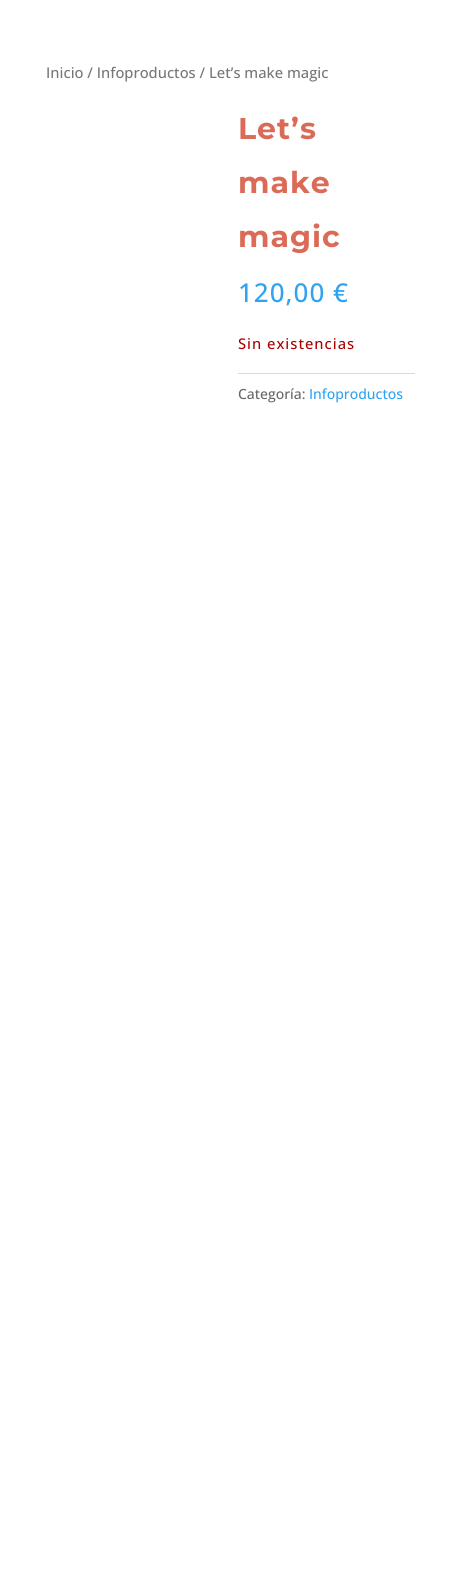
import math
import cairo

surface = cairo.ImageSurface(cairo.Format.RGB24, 461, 1582)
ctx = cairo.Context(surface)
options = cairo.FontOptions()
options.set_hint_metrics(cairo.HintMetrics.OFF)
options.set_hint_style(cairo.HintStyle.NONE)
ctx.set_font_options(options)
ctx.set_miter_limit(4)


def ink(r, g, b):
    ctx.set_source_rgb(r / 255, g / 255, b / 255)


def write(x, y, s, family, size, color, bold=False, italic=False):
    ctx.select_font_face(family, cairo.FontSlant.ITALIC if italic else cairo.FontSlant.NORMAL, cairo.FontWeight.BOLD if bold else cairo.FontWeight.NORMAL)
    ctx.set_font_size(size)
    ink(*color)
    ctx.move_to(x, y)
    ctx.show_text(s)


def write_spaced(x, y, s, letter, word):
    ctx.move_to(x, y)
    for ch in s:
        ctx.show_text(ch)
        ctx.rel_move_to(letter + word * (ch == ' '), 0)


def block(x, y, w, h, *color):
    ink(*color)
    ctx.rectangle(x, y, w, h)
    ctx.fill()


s1 = dict(family="Open Sans Medium", size=14.75, color=(118, 118, 118))
s2 = dict(family="Open Sans Medium", size=14, color=(102, 102, 102))
s3 = dict(family="Open Sans Medium", size=14, color=(46, 163, 242))

ink(255, 255, 255)
ctx.paint()
write(46, 78, "Inicio / Infoproductos / Let’s make magic", **s1)
ctx.select_font_face("Montserrat Thin")
ctx.set_font_size(30)
ink(219, 107, 86)
write_spaced(238, 139, "Let’s", 1, 0)
write_spaced(238, 193, "make", 1, 0)
write_spaced(238, 247, "magic", 1, 0)
ctx.select_font_face("Open Sans Medium")
ctx.set_font_size(26)
ink(46, 163, 242)
write_spaced(238, 302, "120,00 €", 1, 0)
ctx.set_font_size(14.75)
ink(170, 0, 0)
write_spaced(238, 349, "Sin existencias", 1, 0)
block(238, 373, 177, 1, 218, 218, 218)
write(238, 399, "Categoría:", **s2)
write(309, 399, "Infoproductos", **s3)
surface.write_to_png("screenshot.png")
